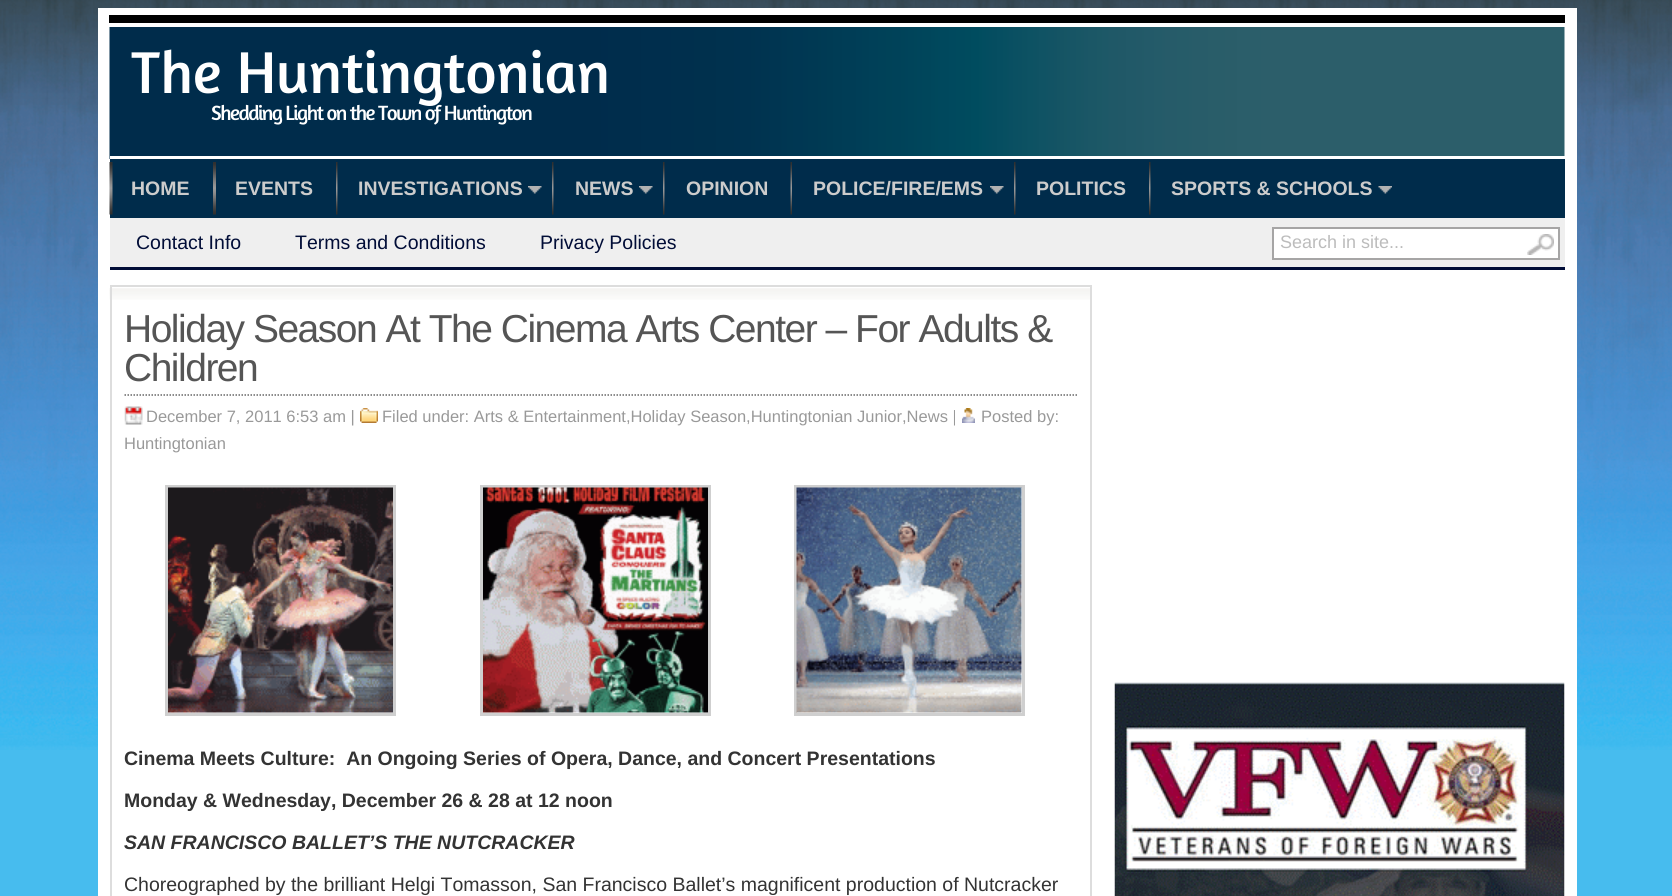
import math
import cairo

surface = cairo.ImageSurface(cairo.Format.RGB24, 1672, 896)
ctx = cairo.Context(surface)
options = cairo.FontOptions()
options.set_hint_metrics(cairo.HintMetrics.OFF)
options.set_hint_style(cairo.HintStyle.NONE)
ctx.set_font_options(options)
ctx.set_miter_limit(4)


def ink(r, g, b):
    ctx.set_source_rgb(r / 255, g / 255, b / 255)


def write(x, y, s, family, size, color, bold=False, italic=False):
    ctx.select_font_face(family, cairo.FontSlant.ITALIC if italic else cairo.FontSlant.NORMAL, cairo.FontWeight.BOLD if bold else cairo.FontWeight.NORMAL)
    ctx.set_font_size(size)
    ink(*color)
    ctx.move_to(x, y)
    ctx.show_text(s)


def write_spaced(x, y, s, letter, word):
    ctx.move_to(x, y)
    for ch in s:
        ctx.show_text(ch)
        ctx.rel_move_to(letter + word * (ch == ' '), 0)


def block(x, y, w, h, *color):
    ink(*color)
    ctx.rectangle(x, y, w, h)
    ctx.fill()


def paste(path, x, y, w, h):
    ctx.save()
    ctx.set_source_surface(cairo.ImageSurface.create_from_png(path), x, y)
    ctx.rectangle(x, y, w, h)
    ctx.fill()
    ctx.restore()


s1 = dict(family="Amaranth", size=60, color=(255, 255, 255))
s2 = dict(family="Liberation Sans", size=19.5, color=(204, 204, 204), bold=True)
s3 = dict(family="Liberation Sans", size=19.5, color=(1, 13, 55))
s4 = dict(family="Liberation Sans", size=18, color=(188, 188, 188))
s5 = dict(family="Liberation Sans", size=16.5, color=(153, 153, 153))
s6 = dict(family="Liberation Sans", size=19.5, color=(51, 51, 51), bold=True)
s7 = dict(family="Liberation Sans", size=19.5, color=(51, 51, 51), bold=True, italic=True)
s8 = dict(family="Liberation Sans", size=19.5, color=(51, 51, 51))

ink(71, 188, 238)
ctx.paint()
paste("pic1.png", 0, 0, 1672, 750)
block(98, 8, 1479, 888, 255, 255, 255)
block(109, 15, 1456, 8, 0, 0, 0)
paste("pic2.png", 109, 27, 1456, 132)
block(110, 156, 1455, 3, 255, 255, 255)
write(131, 93, "The Huntingtonian", **s1)
ctx.set_font_size(21)
write_spaced(211, 120, "Shedding Light on the Town of Huntington", -1.5, 0)
block(110, 159, 1455, 59, 0, 44, 75)
paste("pic3.png", 109, 162, 4, 53)
write(131, 195, "HOME", **s2)
paste("pic4.png", 213, 162, 3, 53)
write(235, 195, "EVENTS", **s2)
paste("pic5.png", 336, 162, 2, 53)
write(358, 195, "INVESTIGATIONS", **s2)
paste("pic6.png", 528, 186, 14, 8)
paste("pic5.png", 552, 162, 2, 53)
write(575, 195, "NEWS", **s2)
paste("pic7.png", 639, 186, 14, 8)
paste("pic5.png", 663, 162, 2, 53)
write(686, 195, "OPINION", **s2)
paste("pic8.png", 790, 162, 2, 53)
write(813, 195, "POLICE/FIRE/EMS", **s2)
paste("pic7.png", 990, 186, 14, 8)
paste("pic5.png", 1014, 162, 2, 53)
write(1036, 195, "POLITICS", **s2)
paste("pic5.png", 1149, 162, 2, 53)
write(1171, 195, "SPORTS & SCHOOLS", **s2)
paste("pic9.png", 1378, 186, 14, 8)
block(110, 218, 1455, 49, 239, 239, 239)
block(110, 267, 1455, 3, 1, 13, 55)
write(136, 249, "Contact Info", **s3)
write(295, 249, "Terms and Conditions", **s3)
write(540, 249, "Privacy Policies", **s3)
ink(255, 255, 255)
ctx.rectangle(1273, 228, 286, 31)
ctx.fill_preserve()
ink(166, 165, 165)
ctx.stroke()
write(1280, 248, "Search in site...", **s4)
paste("pic10.png", 1527, 234, 27, 21)
paste("pic11.png", 109, 288, 981, 12)
ctx.rectangle(111, 286, 980, 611)
ink(221, 221, 221)
ctx.stroke()
ctx.set_font_size(39)
ink(85, 85, 85)
write_spaced(124, 342, "Holiday Season At The Cinema Arts Center – For Adults &", -1.5, 0)
write_spaced(124, 381, "Children", -1.5, 0)
ctx.new_path()
ctx.move_to(124.5, 395)
ctx.line_to(1077, 395)
ink(102, 102, 102)
ctx.set_line_width(1.5)
ctx.set_dash([1.5, 1.5])
ctx.stroke()
paste("pic12.png", 124, 406, 19, 19)
write(146, 422, "December 7, 2011 6:53 am |", **s5)
paste("pic13.png", 360, 408, 18, 15)
write(382, 422, "Filed under: Arts & Entertainment,Holiday Season,Huntingtonian Junior,News |", **s5)
paste("pic14.png", 962, 408, 13, 15)
write(981, 422, "Posted by:", **s5)
write(124, 449, "Huntingtonian", **s5)
ctx.rectangle(166.5, 486.5, 228, 228)
ink(207, 207, 207)
ctx.set_line_width(3)
ctx.set_dash([])
ctx.stroke()
paste("pic15.png", 168, 487, 225, 226)
ctx.rectangle(481.5, 486.5, 228, 228)
ctx.stroke()
paste("pic16.png", 483, 487, 225, 226)
ctx.rectangle(795.5, 486.5, 228, 228)
ctx.stroke()
paste("pic17.png", 796, 487, 226, 226)
write(124, 765, "Cinema Meets Culture:  An Ongoing Series of Opera, Dance, and Concert Presentations", **s6)
write(124, 807, "Monday & Wednesday, December 26 & 28 at 12 noon", **s6)
write(124, 849, "SAN FRANCISCO BALLET’S THE NUTCRACKER", **s7)
write(124, 891, "Choreographed by the brilliant Helgi Tomasson, San Francisco Ballet’s magnificent production of Nutcracker", **s8)
paste("pic18.png", 1114, 682, 451, 214)
surface.write_to_png("screenshot.png")
